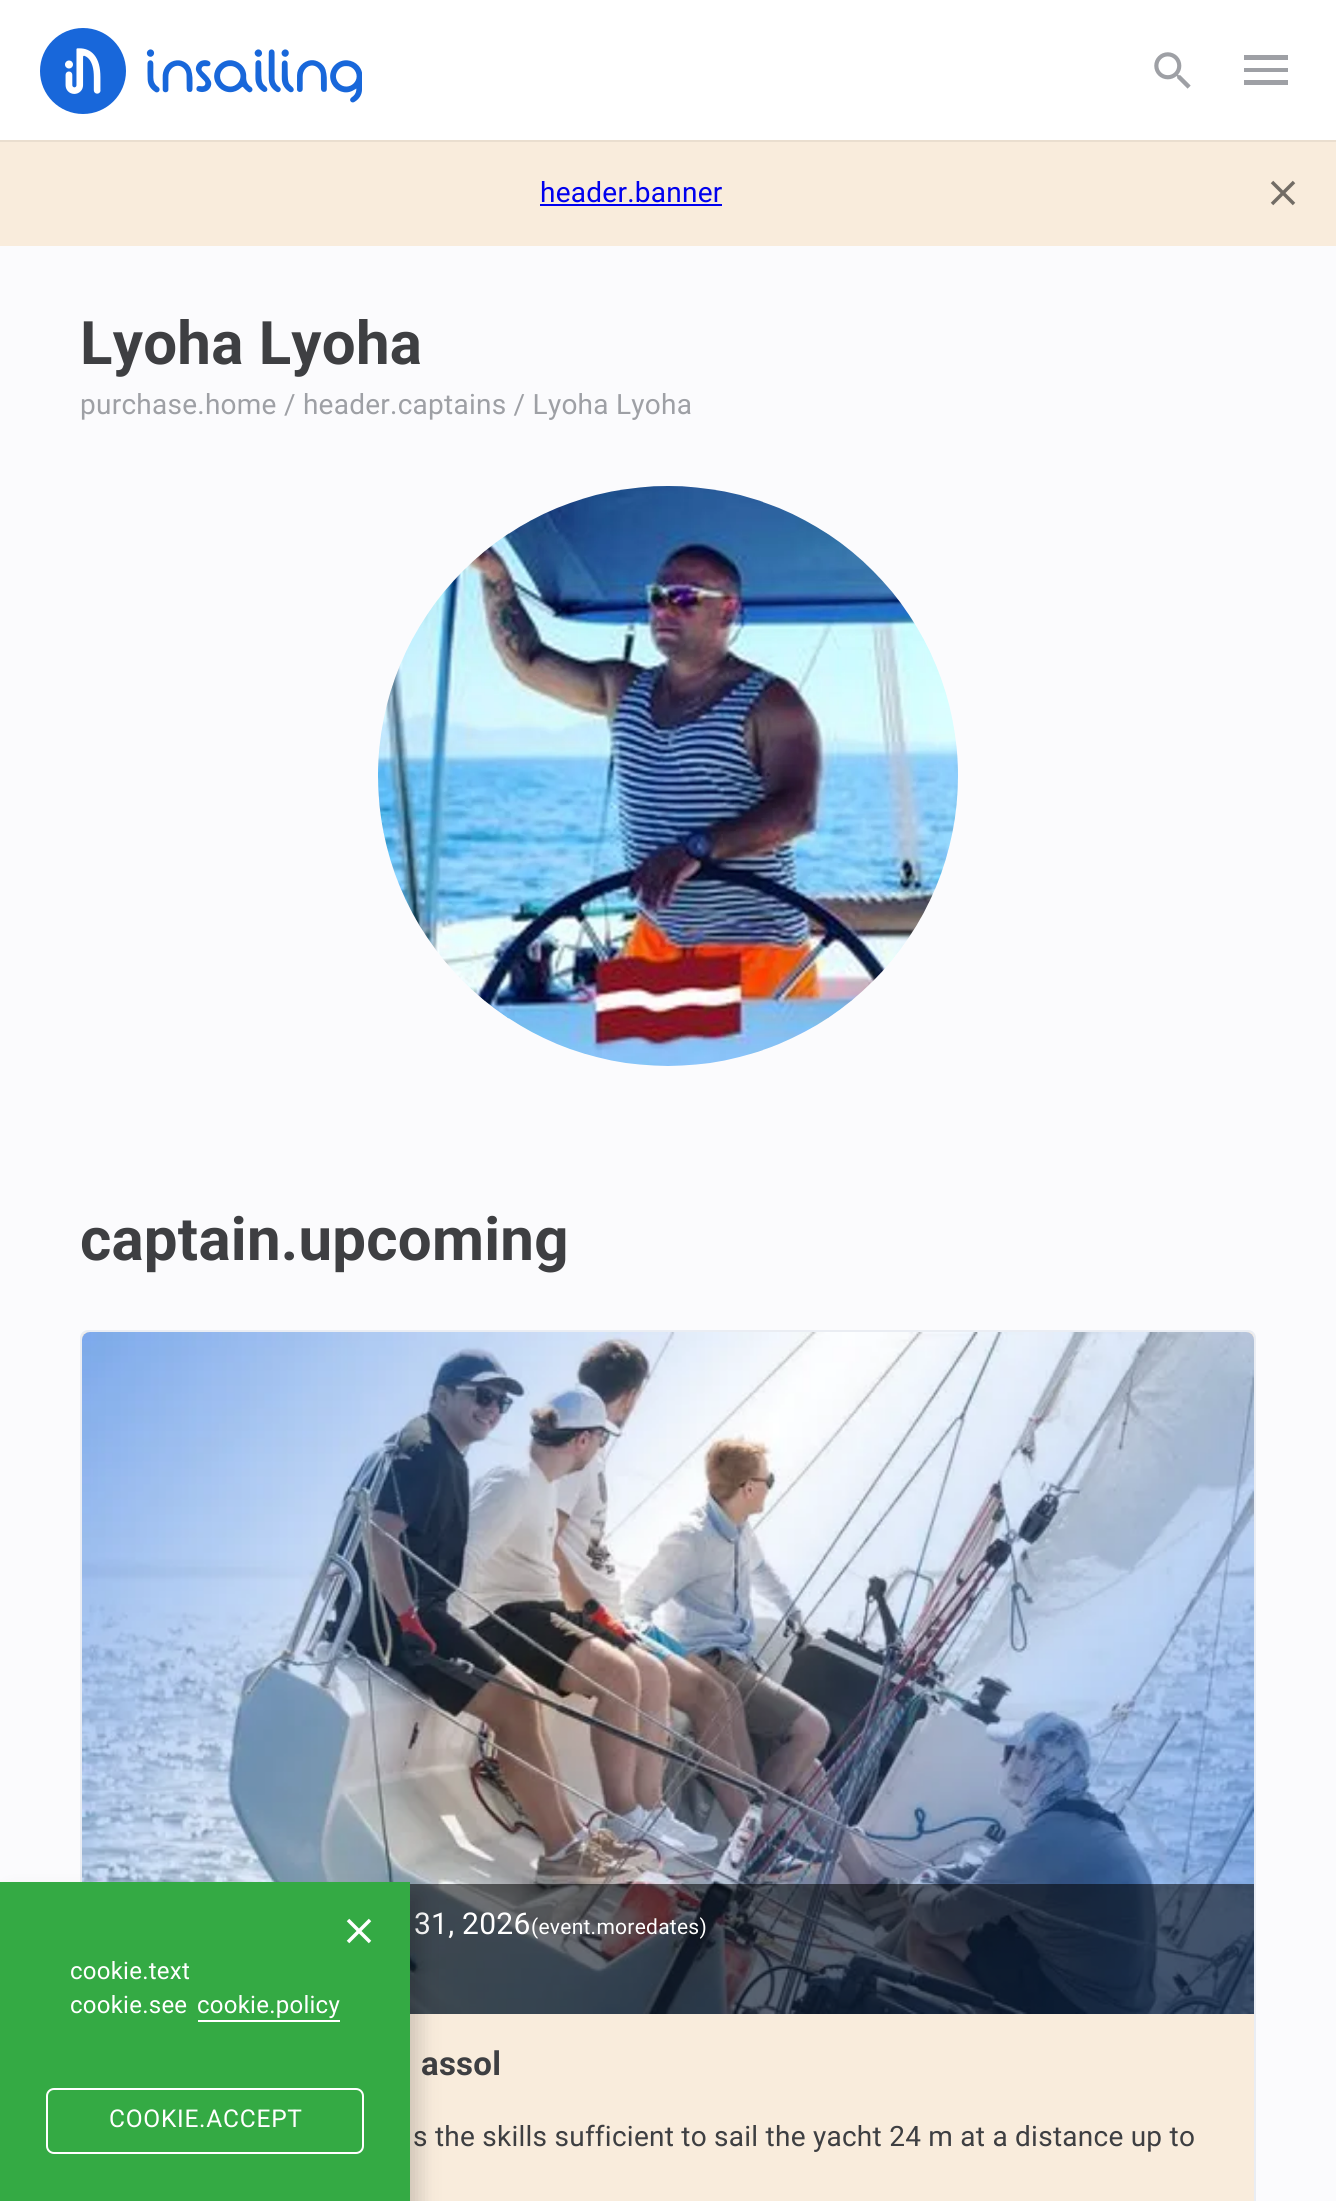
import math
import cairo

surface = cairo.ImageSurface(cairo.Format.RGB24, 1336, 2201)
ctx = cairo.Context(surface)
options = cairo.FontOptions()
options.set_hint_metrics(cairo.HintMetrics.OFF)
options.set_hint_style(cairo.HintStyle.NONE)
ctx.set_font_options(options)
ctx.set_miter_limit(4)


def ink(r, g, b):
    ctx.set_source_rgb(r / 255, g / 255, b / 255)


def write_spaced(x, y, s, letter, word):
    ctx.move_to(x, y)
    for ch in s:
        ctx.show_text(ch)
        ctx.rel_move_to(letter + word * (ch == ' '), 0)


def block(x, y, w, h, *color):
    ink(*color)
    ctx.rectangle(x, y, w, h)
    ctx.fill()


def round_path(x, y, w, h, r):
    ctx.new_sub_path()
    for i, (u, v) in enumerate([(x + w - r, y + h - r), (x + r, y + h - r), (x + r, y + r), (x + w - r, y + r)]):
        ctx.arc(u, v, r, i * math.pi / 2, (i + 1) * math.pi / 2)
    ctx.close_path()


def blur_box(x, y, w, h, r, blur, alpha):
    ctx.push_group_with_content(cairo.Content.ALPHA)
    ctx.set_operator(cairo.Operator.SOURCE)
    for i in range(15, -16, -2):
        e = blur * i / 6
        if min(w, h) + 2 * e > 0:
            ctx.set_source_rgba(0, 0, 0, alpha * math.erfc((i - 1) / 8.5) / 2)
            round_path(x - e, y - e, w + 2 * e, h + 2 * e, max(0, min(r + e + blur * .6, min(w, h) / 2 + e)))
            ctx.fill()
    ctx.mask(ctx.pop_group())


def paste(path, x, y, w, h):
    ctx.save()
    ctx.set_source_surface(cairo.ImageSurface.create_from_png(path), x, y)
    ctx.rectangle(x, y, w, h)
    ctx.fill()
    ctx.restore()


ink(251, 251, 253)
ctx.paint()
block(0, 140, 1336, 2, 234, 222, 207)
block(0, 0, 1336, 140, 255, 255, 255)
paste("pic1.png", 40, 28, 322, 86)
paste("pic2.png", 1154, 52, 37, 37)
ink(158, 160, 165)
ctx.new_path()
ctx.move_to(1244, 85)
ctx.line_to(1288, 85)
ctx.line_to(1288, 80)
ctx.line_to(1244, 80)
ctx.close_path()
ctx.move_to(1244, 72)
ctx.line_to(1288, 72)
ctx.line_to(1288, 68)
ctx.line_to(1244, 68)
ctx.close_path()
ctx.move_to(1244, 55)
ctx.line_to(1244, 60)
ctx.line_to(1288, 60)
ctx.line_to(1288, 55)
ctx.close_path()
ctx.fill()
block(0, 142, 1336, 104, 249, 236, 220)
ctx.select_font_face("Roboto")
ctx.set_font_size(28)
ink(0, 0, 238)
write_spaced(540, 202, "header.banner", 0.25, 0)
block(540, 204, 182, 2, 0, 0, 238)
paste("pic3.png", 1270, 180, 26, 26)
ctx.select_font_face("Roboto", cairo.FontSlant.NORMAL, cairo.FontWeight.BOLD)
ctx.set_font_size(60)
ink(62, 63, 66)
write_spaced(80, 364, "Lyoha Lyoha", 0.25, 0)
ctx.select_font_face("Roboto")
ctx.set_font_size(28)
ink(158, 160, 165)
write_spaced(80, 414, "purchase.home / header.captains / Lyoha Lyoha", 0.25, 0)
paste("pic4.png", 378, 486, 580, 580)
ctx.select_font_face("Roboto", cairo.FontSlant.NORMAL, cairo.FontWeight.BOLD)
ctx.set_font_size(60)
ink(62, 63, 66)
write_spaced(80, 1260, "captain.upcoming", 0.25, 0)
ink(249, 236, 220)
round_path(81, 1331, 1174, 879, 7)
ctx.fill_preserve()
ink(234, 237, 243)
ctx.stroke()
paste("pic5.png", 1246, 1332, 8, 8)
paste("pic6.png", 82, 1332, 1172, 682)
ctx.set_source_rgba(0, 0, 0, 0.55)
ctx.rectangle(410, 1884, 844, 130)
ctx.fill()
ctx.select_font_face("Roboto")
ctx.set_font_size(30)
ink(255, 255, 255)
write_spaced(414, 1934, "31, 2026", 0.25, 0)
ctx.set_font_size(21)
write_spaced(531, 1934, "(event.moredates)", 0.25, 0)
ctx.select_font_face("Roboto", cairo.FontSlant.NORMAL, cairo.FontWeight.BOLD)
ctx.set_font_size(33)
ink(62, 63, 66)
write_spaced(421, 2075, "assol", 0.25, 0)
ctx.select_font_face("Roboto")
ctx.set_font_size(28)
write_spaced(413, 2146, "s the skills sufficient to sail the yacht 24 m at a distance up to", 0.25, 0)
ink(0, 0, 0)
blur_box(10, 1896, 410, 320, 0, 10, 0.17)
block(0, 1882, 410, 319, 52, 170, 68)
paste("pic7.png", 346, 1918, 26, 26)
ctx.set_font_size(24)
ink(255, 255, 255)
write_spaced(70, 1979, "cookie.text", 0.25, 0)
write_spaced(70, 2013, "cookie.see", 0.25, 0)
write_spaced(197, 2013, "cookie.policy", 0.25, 0)
block(198, 2020, 142, 2, 255, 255, 255)
round_path(47, 2089, 316, 64, 7)
ctx.stroke()
ctx.set_font_size(24.5)
write_spaced(109, 2127, "COOKIE.ACCEPT", 0.75, 0)
surface.write_to_png("screenshot.png")
